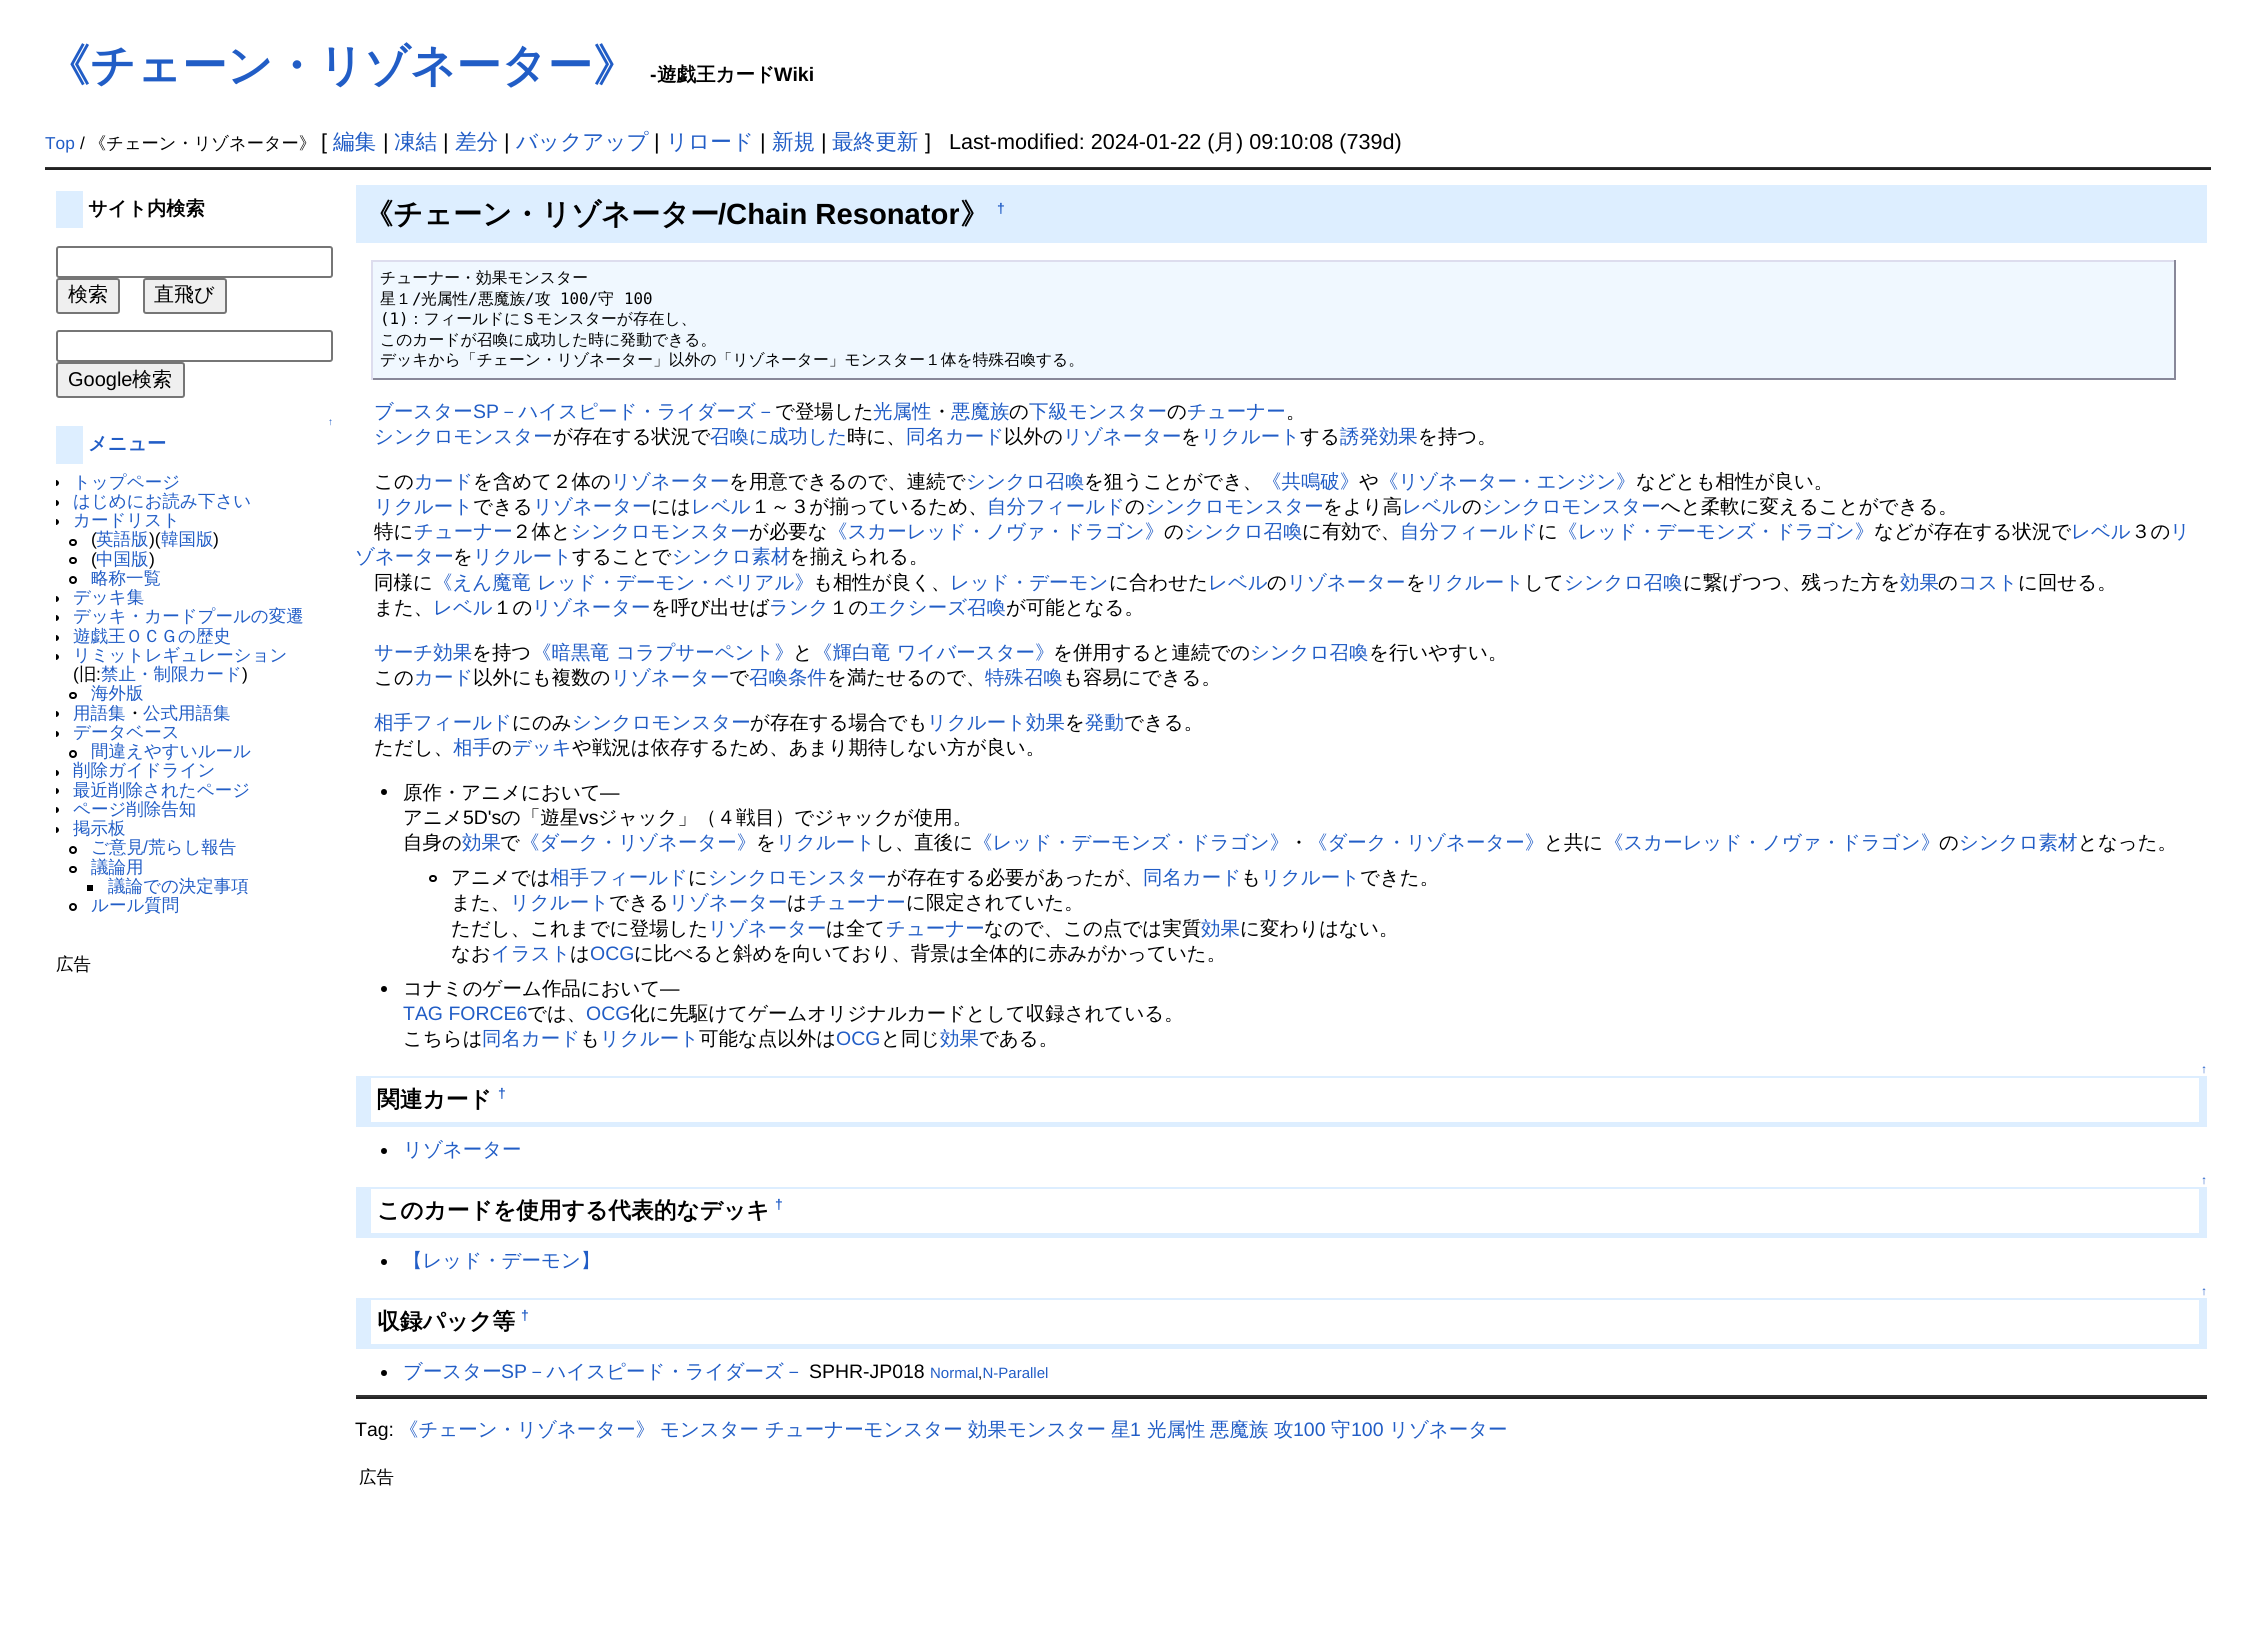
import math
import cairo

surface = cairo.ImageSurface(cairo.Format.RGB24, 2255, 1628)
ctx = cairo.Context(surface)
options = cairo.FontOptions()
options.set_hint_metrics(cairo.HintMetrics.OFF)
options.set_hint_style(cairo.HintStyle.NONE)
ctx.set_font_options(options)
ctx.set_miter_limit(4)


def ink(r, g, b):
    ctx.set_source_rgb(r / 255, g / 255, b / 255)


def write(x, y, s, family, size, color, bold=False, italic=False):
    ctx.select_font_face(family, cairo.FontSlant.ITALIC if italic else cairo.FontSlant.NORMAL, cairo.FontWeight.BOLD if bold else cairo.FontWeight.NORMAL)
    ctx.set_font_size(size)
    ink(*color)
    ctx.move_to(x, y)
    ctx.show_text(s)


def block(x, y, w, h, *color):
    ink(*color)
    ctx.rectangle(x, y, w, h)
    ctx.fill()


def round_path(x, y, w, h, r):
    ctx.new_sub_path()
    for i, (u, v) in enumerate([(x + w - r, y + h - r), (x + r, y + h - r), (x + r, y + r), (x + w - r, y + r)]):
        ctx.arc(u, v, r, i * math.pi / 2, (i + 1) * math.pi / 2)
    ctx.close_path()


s1 = dict(family="WenQuanYi Zen Hei", size=45, color=(33, 93, 198), bold=True)
s2 = dict(family="Liberation Sans", size=19.5, color=(0, 0, 0), bold=True)
s3 = dict(family="WenQuanYi Zen Hei", size=19.5, color=(0, 0, 0), bold=True)
s4 = dict(family="Liberation Sans", size=17.25, color=(33, 93, 198))
s5 = dict(family="Liberation Sans", size=17.25, color=(0, 0, 0))
s6 = dict(family="WenQuanYi Zen Hei Medium", size=17.25, color=(0, 0, 0))
s7 = dict(family="Liberation Sans", size=21.6, color=(0, 0, 0))
s8 = dict(family="WenQuanYi Zen Hei Medium", size=21.6, color=(33, 93, 198))
s9 = dict(family="WenQuanYi Zen Hei Medium", size=21.6, color=(0, 0, 0))
s10 = dict(family="WenQuanYi Zen Hei", size=19.25, color=(0, 0, 0), bold=True)
s11 = dict(family="WenQuanYi Zen Hei Medium", size=20, color=(0, 0, 0))
s12 = dict(family="Liberation Sans", size=20, color=(0, 0, 0))
s13 = dict(family="Liberation Sans", size=10, color=(33, 93, 198))
s14 = dict(family="WenQuanYi Zen Hei", size=19.25, color=(33, 93, 198), bold=True)
s15 = dict(family="WenQuanYi Zen Hei Medium", size=17.5, color=(33, 93, 198))
s16 = dict(family="Liberation Sans", size=17.5, color=(0, 0, 0))
s17 = dict(family="WenQuanYi Zen Hei Medium", size=17.5, color=(0, 0, 0))
s18 = dict(family="Liberation Sans", size=17.5, color=(33, 93, 198))
s19 = dict(family="WenQuanYi Zen Hei", size=29.2, color=(0, 0, 0), bold=True)
s20 = dict(family="Liberation Sans", size=29.2, color=(0, 0, 0), bold=True)
s21 = dict(family="Liberation Sans", size=14, color=(33, 93, 198), bold=True)
s22 = dict(family="WenQuanYi Zen Hei Medium", size=15.8, color=(0, 0, 0))
s23 = dict(family="DejaVu Sans Mono", size=15.8, color=(0, 0, 0))
s24 = dict(family="WenQuanYi Zen Hei Medium", size=19.45, color=(33, 93, 198))
s25 = dict(family="Liberation Sans", size=19.45, color=(33, 93, 198))
s26 = dict(family="WenQuanYi Zen Hei Medium", size=19.45, color=(0, 0, 0))
s27 = dict(family="Liberation Sans", size=19.45, color=(0, 0, 0))
s28 = dict(family="Liberation Sans", size=12, color=(33, 93, 198))
s29 = dict(family="WenQuanYi Zen Hei", size=22.75, color=(0, 0, 0), bold=True)
s30 = dict(family="Liberation Sans", size=15, color=(33, 93, 198))
s31 = dict(family="Liberation Sans", size=15, color=(0, 0, 0))

ink(255, 255, 255)
ctx.paint()
write(45, 81, "《チェーン・リゾネーター》", **s1)
write(650, 81, "-", **s2)
write(657, 81, "遊戯王カード", **s3)
write(774, 81, "Wiki", **s2)
write(45, 149, "Top", **s4)
write(80, 149, "/", **s5)
write(89, 149, "《チェーン・リゾネーター》", **s6)
write(321, 149, "[", **s7)
write(333, 149, "編集", **s8)
write(383, 149, "|", **s7)
write(394, 149, "凍結", **s8)
write(443, 149, "|", **s7)
write(455, 149, "差分", **s8)
write(504, 149, "|", **s7)
write(516, 149, "バックアップ", **s8)
write(654, 149, "|", **s7)
write(666, 149, "リロード", **s8)
write(760, 149, "|", **s7)
write(772, 149, "新規", **s8)
write(821, 149, "|", **s7)
write(832, 149, "最終更新", **s8)
write(925, 149, "]   Last-modified: 2024-01-22 (", **s7)
write(1214, 149, "月", **s9)
write(1236, 149, ") 09:10:08 (739d)", **s7)
block(45, 167, 2166, 1, 51, 51, 51)
block(45, 168, 2166, 2, 34, 34, 34)
block(56, 191, 27, 37, 221, 238, 255)
write(88, 215, "サイト内検索", **s10)
round_path(57, 247, 275, 30, 2)
ink(118, 118, 118)
ctx.stroke()
ink(239, 239, 239)
round_path(57, 279, 62, 34, 2)
ctx.fill_preserve()
ink(118, 118, 118)
ctx.stroke()
write(68, 301, "検索", **s11)
ink(239, 239, 239)
round_path(144, 279, 82, 34, 2)
ctx.fill_preserve()
ink(118, 118, 118)
ctx.stroke()
write(154, 301, "直飛び", **s11)
round_path(57, 331, 275, 30, 2)
ink(118, 118, 118)
ctx.stroke()
ink(239, 239, 239)
round_path(57, 363, 127, 34, 2)
ctx.fill_preserve()
ink(118, 118, 118)
ctx.stroke()
write(68, 386, "Google", **s12)
write(132, 386, "検索", **s11)
write(328, 425, "↑", **s13)
block(56, 426, 27, 38, 221, 238, 255)
write(88, 450, "メニュー", **s14)
ink(0, 0, 0)
ctx.new_path()
ctx.move_to(56, 480)
ctx.curve_to(57.5, 480, 59, 481.5, 59, 483)
ctx.curve_to(59, 484.5, 57.5, 486, 56, 486)
ctx.close_path()
ctx.fill()
write(73, 488, "トップページ", **s15)
ink(0, 0, 0)
ctx.new_path()
ctx.move_to(56, 500)
ctx.curve_to(57.5, 500, 59, 501.5, 59, 503)
ctx.curve_to(59, 504.5, 57.5, 506, 56, 506)
ctx.close_path()
ctx.fill()
write(73, 507, "はじめにお読み下さい", **s15)
ink(0, 0, 0)
ctx.new_path()
ctx.move_to(56, 519)
ctx.curve_to(57.5, 519, 59, 520.5, 59, 522)
ctx.curve_to(59, 523.5, 57.5, 525, 56, 525)
ctx.close_path()
ctx.fill()
write(73, 526, "カードリスト", **s15)
round_path(70, 540, 6, 5, 2.5)
ink(0, 0, 0)
ctx.stroke()
write(91, 545, "(", **s16)
write(96, 545, "英語版", **s15)
write(149, 545, ")(", **s16)
write(161, 545, "韓国版", **s15)
write(213, 545, ")", **s16)
round_path(70, 558, 6, 5, 2.5)
ctx.stroke()
write(91, 565, "(", **s16)
write(96, 565, "中国版", **s15)
write(149, 565, ")", **s16)
ctx.new_path()
ctx.arc(73, 580, 3, 0, 2 * math.pi)
ctx.stroke()
write(91, 584, "略称一覧", **s15)
ink(0, 0, 0)
ctx.new_path()
ctx.move_to(56, 596)
ctx.curve_to(57.5, 596, 59, 597.5, 59, 599)
ctx.curve_to(59, 600.5, 57.5, 602, 56, 602)
ctx.close_path()
ctx.fill()
write(73, 603, "デッキ集", **s15)
ink(0, 0, 0)
ctx.new_path()
ctx.move_to(56, 615)
ctx.curve_to(57.5, 615, 59, 616.5, 59, 618)
ctx.curve_to(59, 619.5, 57.5, 621, 56, 621)
ctx.close_path()
ctx.fill()
write(73, 622, "デッキ・カードプールの変遷", **s15)
ink(0, 0, 0)
ctx.new_path()
ctx.move_to(56, 635)
ctx.curve_to(57.5, 635, 59, 636.5, 59, 638)
ctx.curve_to(59, 639.5, 57.5, 641, 56, 641)
ctx.close_path()
ctx.fill()
write(73, 642, "遊戯王ＯＣＧの歴史", **s15)
ink(0, 0, 0)
ctx.new_path()
ctx.move_to(56, 654)
ctx.curve_to(57.5, 654, 59, 655.5, 59, 657)
ctx.curve_to(59, 658.5, 57.5, 660, 56, 660)
ctx.close_path()
ctx.fill()
write(73, 661, "リミットレギュレーション", **s15)
write(73, 680, "(", **s16)
write(79, 680, "旧", **s17)
write(96, 680, ":", **s16)
write(101, 680, "禁止・制限カード", **s15)
write(242, 680, ")", **s16)
round_path(70, 693, 6, 5, 2.5)
ctx.stroke()
write(91, 699, "海外版", **s15)
ink(0, 0, 0)
ctx.new_path()
ctx.move_to(56, 711)
ctx.curve_to(57.5, 711, 59, 712.5, 59, 714)
ctx.curve_to(59, 715.5, 57.5, 717, 56, 717)
ctx.close_path()
ctx.fill()
write(73, 719, "用語集", **s15)
write(126, 719, "・", **s17)
write(143, 719, "公式用語集", **s15)
ink(0, 0, 0)
ctx.new_path()
ctx.move_to(56, 731)
ctx.curve_to(57.5, 731, 59, 732.5, 59, 734)
ctx.curve_to(59, 735.5, 57.5, 737, 56, 737)
ctx.close_path()
ctx.fill()
write(73, 738, "データベース", **s15)
ctx.new_path()
ctx.arc(73, 754, 3, 0, 2 * math.pi)
ink(0, 0, 0)
ctx.stroke()
write(91, 757, "間違えやすいルール", **s15)
ink(0, 0, 0)
ctx.new_path()
ctx.move_to(56, 770)
ctx.curve_to(57.5, 770, 59, 771.5, 59, 773)
ctx.curve_to(59, 774.5, 57.5, 776, 56, 776)
ctx.close_path()
ctx.fill()
write(73, 776, "削除ガイドライン", **s15)
ink(0, 0, 0)
ctx.new_path()
ctx.move_to(56, 788)
ctx.curve_to(57.5, 788, 59, 789.5, 59, 791)
ctx.curve_to(59, 792.5, 57.5, 794, 56, 794)
ctx.close_path()
ctx.fill()
write(73, 796, "最近削除されたページ", **s15)
ink(0, 0, 0)
ctx.new_path()
ctx.move_to(56, 807)
ctx.curve_to(57.5, 807, 59, 808.5, 59, 810)
ctx.curve_to(59, 811.5, 57.5, 813, 56, 813)
ctx.close_path()
ctx.fill()
write(73, 815, "ページ削除告知", **s15)
ink(0, 0, 0)
ctx.new_path()
ctx.move_to(56, 827)
ctx.curve_to(57.5, 827, 59, 828.5, 59, 830)
ctx.curve_to(59, 831.5, 57.5, 833, 56, 833)
ctx.close_path()
ctx.fill()
write(73, 834, "掲示板", **s15)
ctx.new_path()
ctx.arc(73, 850, 3, 0, 2 * math.pi)
ink(0, 0, 0)
ctx.stroke()
write(91, 853, "ご意見", **s15)
write(143, 853, "/", **s18)
write(148, 853, "荒らし報告", **s15)
round_path(70, 867, 6, 5, 2.5)
ink(0, 0, 0)
ctx.stroke()
write(91, 873, "議論用", **s15)
block(87, 885, 6, 6, 0, 0, 0)
write(108, 892, "議論での決定事項", **s15)
ctx.new_path()
ctx.arc(73, 907, 3, 0, 2 * math.pi)
ink(0, 0, 0)
ctx.stroke()
write(91, 911, "ルール質問", **s15)
write(56, 970, "広告", **s17)
block(356, 185, 1851, 58, 221, 238, 255)
write(364, 224, "《チェーン・リゾネーター", **s19)
write(718, 224, "/Chain Resonator", **s20)
write(960, 224, "》", **s19)
write(997, 213, "†", **s21)
block(373, 262, 1801, 116, 240, 248, 255)
block(371, 260, 1804, 2, 221, 221, 238)
block(2174, 260, 2, 120, 136, 136, 153)
block(371, 378, 1804, 2, 136, 136, 153)
block(371, 260, 2, 120, 221, 221, 238)
write(380, 283, "チューナー・効果モンスター", **s22)
write(380, 304, "星１", **s22)
write(412, 304, "/", **s23)
write(421, 304, "光属性", **s22)
write(468, 304, "/", **s23)
write(478, 304, "悪魔族", **s22)
write(525, 304, "/", **s23)
write(535, 304, "攻", **s22)
write(560, 304, "100/", **s23)
write(598, 304, "守", **s22)
write(624, 304, "100", **s23)
write(380, 324, "(1)", **s23)
write(408, 324, "：フィールドにＳモンスターが存在し、", **s22)
write(380, 345, "このカードが召喚に成功した時に発動できる。", **s22)
write(380, 365, "デッキから「チェーン・リゾネーター」以外の「リゾネーター」モンスター１体を特殊召喚する。", **s22)
write(374, 418, "ブースター", **s24)
write(473, 418, "SP", **s25)
write(499, 418, "－ハイスピード・ライダーズ－", **s24)
write(775, 418, "で登場した", **s26)
write(873, 418, "光属性", **s24)
write(932, 418, "・", **s26)
write(951, 418, "悪魔族", **s24)
write(1009, 418, "の", **s26)
write(1029, 418, "下級モンスター", **s24)
write(1167, 418, "の", **s26)
write(1187, 418, "チューナー", **s24)
write(1286, 418, "。", **s26)
write(374, 443, "シンクロモンスター", **s24)
write(553, 443, "が存在する状況で", **s26)
write(710, 443, "召喚に成功した", **s24)
write(847, 443, "時に、", **s26)
write(906, 443, "同名カード", **s24)
write(1004, 443, "以外の", **s26)
write(1063, 443, "リゾネーター", **s24)
write(1181, 443, "を", **s26)
write(1201, 443, "リクルート", **s24)
write(1300, 443, "する", **s26)
write(1340, 443, "誘発効果", **s24)
write(1418, 443, "を持つ。", **s26)
write(374, 488, "この", **s26)
write(414, 488, "カード", **s24)
write(473, 488, "を含めて２体の", **s26)
write(611, 488, "リゾネーター", **s24)
write(729, 488, "を用意できるので、連続で", **s26)
write(966, 488, "シンクロ召喚", **s24)
write(1084, 488, "を狙うことができ、", **s26)
write(1262, 488, "《共鳴破》", **s24)
write(1359, 488, "や", **s26)
write(1379, 488, "《リゾネーター・エンジン》", **s24)
write(1636, 488, "などとも相性が良い。", **s26)
write(374, 513, "リクルート", **s24)
write(473, 513, "できる", **s26)
write(533, 513, "リゾネーター", **s24)
write(651, 513, "には", **s26)
write(691, 513, "レベル", **s24)
write(751, 513, "１～３が揃っているため、", **s26)
write(987, 513, "自分フィールド", **s24)
write(1125, 513, "の", **s26)
write(1145, 513, "シンクロモンスター", **s24)
write(1323, 513, "をより高", **s26)
write(1402, 513, "レベル", **s24)
write(1462, 513, "の", **s26)
write(1482, 513, "シンクロモンスター", **s24)
write(1661, 513, "へと柔軟に変えることができる。", **s26)
write(374, 538, "特に", **s26)
write(414, 538, "チューナー", **s24)
write(512, 538, "２体と", **s26)
write(571, 538, "シンクロモンスター", **s24)
write(749, 538, "が必要な", **s26)
write(828, 538, "《スカーレッド・ノヴァ・ドラゴン》", **s24)
write(1164, 538, "の", **s26)
write(1184, 538, "シンクロ召喚", **s24)
write(1302, 538, "に有効で、", **s26)
write(1400, 538, "自分フィールド", **s24)
write(1538, 538, "に", **s26)
write(1558, 538, "《レッド・デーモンズ・ドラゴン》", **s24)
write(1874, 538, "などが存在する状況で", **s26)
write(2071, 538, "レベル", **s24)
write(2131, 538, "３の", **s26)
write(2170, 538, "リ", **s24)
write(355, 563, "ゾネーター", **s24)
write(453, 563, "を", **s26)
write(473, 563, "リクルート", **s24)
write(572, 563, "することで", **s26)
write(672, 563, "シンクロ素材", **s24)
write(790, 563, "を揃えられる。", **s26)
write(374, 589, "同様に", **s26)
write(433, 589, "《えん魔竜 レッド・デーモン・ベリアル》", **s24)
write(813, 589, "も相性が良く、", **s26)
write(950, 589, "レッド・デーモン", **s24)
write(1109, 589, "に合わせた", **s26)
write(1208, 589, "レベル", **s24)
write(1267, 589, "の", **s26)
write(1287, 589, "リゾネーター", **s24)
write(1406, 589, "を", **s26)
write(1425, 589, "リクルート", **s24)
write(1524, 589, "して", **s26)
write(1564, 589, "シンクロ召喚", **s24)
write(1683, 589, "に繋げつつ、残った方を", **s26)
write(1900, 589, "効果", **s24)
write(1938, 589, "の", **s26)
write(1958, 589, "コスト", **s24)
write(2018, 589, "に回せる。", **s26)
write(374, 614, "また、", **s26)
write(433, 614, "レベル", **s24)
write(493, 614, "１の", **s26)
write(532, 614, "リゾネーター", **s24)
write(651, 614, "を呼び出せば", **s26)
write(769, 614, "ランク", **s24)
write(829, 614, "１の", **s26)
write(868, 614, "エクシーズ召喚", **s24)
write(1006, 614, "が可能となる。", **s26)
write(374, 659, "サーチ効果", **s24)
write(472, 659, "を持つ", **s26)
write(532, 659, "《暗黒竜 コラプサーペント》", **s24)
write(793, 659, "と", **s26)
write(813, 659, "《輝白竜 ワイバースター》", **s24)
write(1053, 659, "を併用すると連続での", **s26)
write(1250, 659, "シンクロ召喚", **s24)
write(1369, 659, "を行いやすい。", **s26)
write(374, 684, "この", **s26)
write(414, 684, "カード", **s24)
write(473, 684, "以外にも複数の", **s26)
write(611, 684, "リゾネーター", **s24)
write(729, 684, "で", **s26)
write(749, 684, "召喚条件", **s24)
write(827, 684, "を満たせるので、", **s26)
write(985, 684, "特殊召喚", **s24)
write(1063, 684, "も容易にできる。", **s26)
write(374, 729, "相手フィールド", **s24)
write(512, 729, "にのみ", **s26)
write(572, 729, "シンクロモンスター", **s24)
write(750, 729, "が存在する場合でも", **s26)
write(927, 729, "リクルート効果", **s24)
write(1065, 729, "を", **s26)
write(1085, 729, "発動", **s24)
write(1124, 729, "できる。", **s26)
write(374, 754, "ただし、", **s26)
write(453, 754, "相手", **s24)
write(492, 754, "の", **s26)
write(512, 754, "デッキ", **s24)
write(572, 754, "や戦況は依存するため、あまり期待しない方が良い。", **s26)
ctx.new_path()
ctx.arc(384, 792, 3, 0, 2 * math.pi)
ctx.fill()
write(403, 799, "原作・アニメにおいて", **s26)
write(600, 799, "―", **s27)
write(403, 824, "アニメ", **s26)
write(463, 824, "5D's", **s27)
write(501, 824, "の「遊星", **s26)
write(579, 824, "vs", **s27)
write(598, 824, "ジャック」（４戦目）でジャックが使用。", **s26)
write(403, 849, "自身の", **s26)
write(462, 849, "効果", **s24)
write(500, 849, "で", **s26)
write(520, 849, "《ダーク・リゾネーター》", **s24)
write(756, 849, "を", **s26)
write(776, 849, "リクルート", **s24)
write(875, 849, "し、直後に", **s26)
write(973, 849, "《レッド・デーモンズ・ドラゴン》", **s24)
write(1289, 849, "・", **s26)
write(1308, 849, "《ダーク・リゾネーター》", **s24)
write(1544, 849, "と共に", **s26)
write(1604, 849, "《スカーレッド・ノヴァ・ドラゴン》", **s24)
write(1939, 849, "の", **s26)
write(1959, 849, "シンクロ素材", **s24)
write(2078, 849, "となった。", **s26)
round_path(430, 876, 6, 5, 2.5)
ctx.stroke()
write(451, 884, "アニメでは", **s26)
write(550, 884, "相手フィールド", **s24)
write(688, 884, "に", **s26)
write(708, 884, "シンクロモンスター", **s24)
write(887, 884, "が存在する必要があったが、", **s26)
write(1143, 884, "同名カード", **s24)
write(1241, 884, "も", **s26)
write(1261, 884, "リクルート", **s24)
write(1360, 884, "できた。", **s26)
write(451, 909, "また、", **s26)
write(510, 909, "リクルート", **s24)
write(609, 909, "できる", **s26)
write(669, 909, "リゾネーター", **s24)
write(787, 909, "は", **s26)
write(807, 909, "チューナー", **s24)
write(906, 909, "に限定されていた。", **s26)
write(451, 935, "ただし、これまでに登場した", **s26)
write(708, 935, "リゾネーター", **s24)
write(826, 935, "は全て", **s26)
write(886, 935, "チューナー", **s24)
write(984, 935, "なので、この点では実質", **s26)
write(1201, 935, "効果", **s24)
write(1240, 935, "に変わりはない。", **s26)
write(451, 960, "なお", **s26)
write(491, 960, "イラスト", **s24)
write(570, 960, "は", **s26)
write(590, 960, "OCG", **s25)
write(634, 960, "に比べると斜めを向いており、背景は全体的に赤みがかっていた。", **s26)
ctx.new_path()
ctx.arc(384, 989, 3, 0, 2 * math.pi)
ctx.fill()
write(403, 995, "コナミのゲーム作品において", **s26)
write(660, 995, "―", **s27)
write(403, 1020, "TAG FORCE6", **s25)
write(527, 1020, "では、", **s26)
write(586, 1020, "OCG", **s25)
write(630, 1020, "化に先駆けてゲームオリジナルカードとして収録されている。", **s26)
write(403, 1045, "こちらは", **s26)
write(482, 1045, "同名カード", **s24)
write(580, 1045, "も", **s26)
write(600, 1045, "リクルート", **s24)
write(699, 1045, "可能な点以外は", **s26)
write(836, 1045, "OCG", **s25)
write(881, 1045, "と同じ", **s26)
write(940, 1045, "効果", **s24)
write(979, 1045, "である。", **s26)
write(2201, 1073, "↑", **s28)
block(371, 1076, 1836, 2, 221, 238, 255)
block(2199, 1076, 8, 51, 221, 238, 255)
block(371, 1122, 1836, 5, 221, 238, 255)
block(356, 1076, 15, 51, 221, 238, 255)
write(377, 1107, "関連カード", **s29)
write(498, 1098, "†", **s21)
ink(0, 0, 0)
ctx.new_path()
ctx.arc(384, 1151, 3, 0, 2 * math.pi)
ctx.fill()
write(403, 1156, "リゾネーター", **s24)
write(2201, 1184, "↑", **s28)
block(371, 1187, 1836, 2, 221, 238, 255)
block(2199, 1187, 8, 51, 221, 238, 255)
block(371, 1233, 1836, 5, 221, 238, 255)
block(356, 1187, 15, 51, 221, 238, 255)
write(377, 1218, "このカードを使用する代表的なデッキ", **s29)
write(775, 1209, "†", **s21)
ink(0, 0, 0)
ctx.new_path()
ctx.arc(384, 1262, 3, 0, 2 * math.pi)
ctx.fill()
write(403, 1267, "【レッド・デーモン】", **s24)
write(2201, 1295, "↑", **s28)
block(371, 1298, 1836, 2, 221, 238, 255)
block(2199, 1298, 8, 51, 221, 238, 255)
block(371, 1344, 1836, 5, 221, 238, 255)
block(356, 1298, 15, 51, 221, 238, 255)
write(377, 1329, "収録パック等", **s29)
write(521, 1320, "†", **s21)
ink(0, 0, 0)
ctx.new_path()
ctx.arc(384, 1373, 3, 0, 2 * math.pi)
ctx.fill()
write(403, 1378, "ブースター", **s24)
write(501, 1378, "SP", **s25)
write(527, 1378, "－ハイスピード・ライダーズ－", **s24)
write(809, 1378, "SPHR-JP018", **s27)
write(930, 1378, "Normal N-Parallel", **s30)
write(978, 1378, ",", **s31)
block(356, 1395, 1851, 2, 51, 51, 51)
block(356, 1397, 1851, 2, 34, 34, 34)
write(355, 1436, "Tag:", **s27)
write(399, 1436, "《チェーン・リゾネーター》", **s24)
write(660, 1436, "モンスター", **s24)
write(765, 1436, "チューナーモンスター", **s24)
write(968, 1436, "効果モンスター", **s24)
write(1111, 1436, "星", **s24)
write(1130, 1436, "1", **s25)
write(1147, 1436, "光属性", **s24)
write(1210, 1436, "悪魔族", **s24)
write(1274, 1436, "攻", **s24)
write(1293, 1436, "100", **s25)
write(1331, 1436, "守", **s24)
write(1351, 1436, "100", **s25)
write(1389, 1436, "リゾネーター", **s24)
write(359, 1483, "広告", **s17)
surface.write_to_png("screenshot.png")
